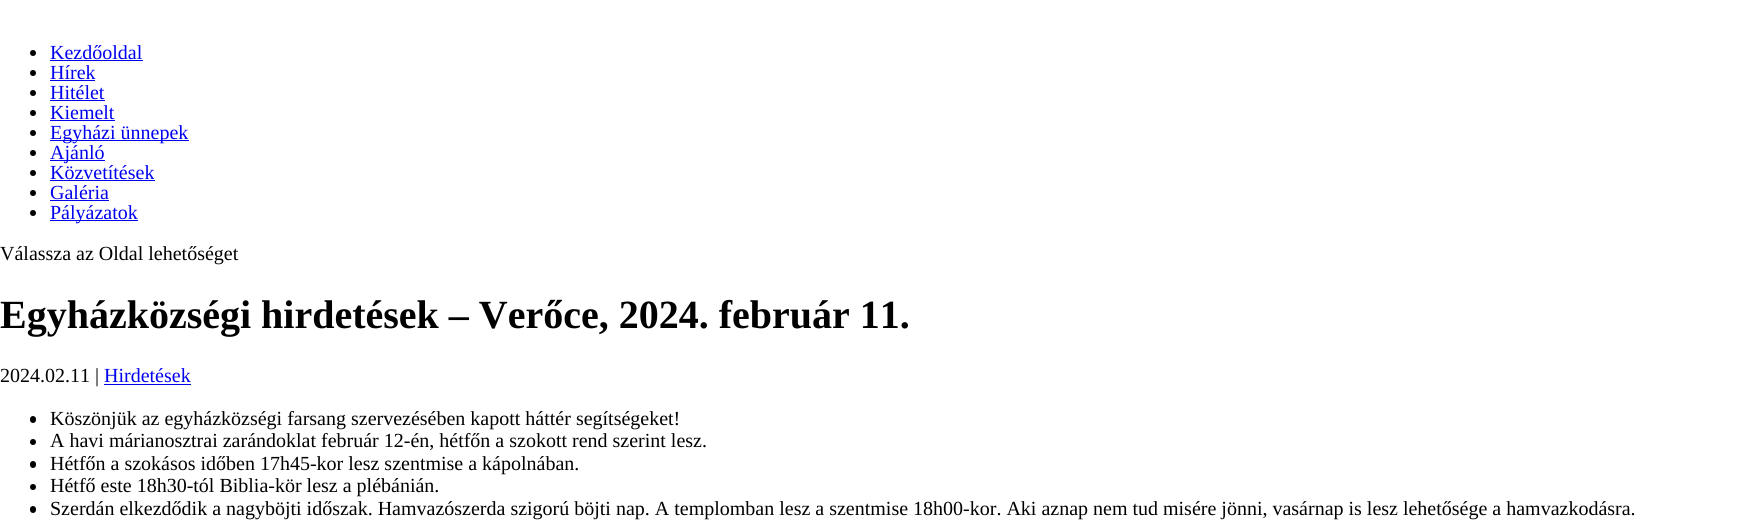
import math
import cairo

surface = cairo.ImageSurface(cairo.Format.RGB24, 1748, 529)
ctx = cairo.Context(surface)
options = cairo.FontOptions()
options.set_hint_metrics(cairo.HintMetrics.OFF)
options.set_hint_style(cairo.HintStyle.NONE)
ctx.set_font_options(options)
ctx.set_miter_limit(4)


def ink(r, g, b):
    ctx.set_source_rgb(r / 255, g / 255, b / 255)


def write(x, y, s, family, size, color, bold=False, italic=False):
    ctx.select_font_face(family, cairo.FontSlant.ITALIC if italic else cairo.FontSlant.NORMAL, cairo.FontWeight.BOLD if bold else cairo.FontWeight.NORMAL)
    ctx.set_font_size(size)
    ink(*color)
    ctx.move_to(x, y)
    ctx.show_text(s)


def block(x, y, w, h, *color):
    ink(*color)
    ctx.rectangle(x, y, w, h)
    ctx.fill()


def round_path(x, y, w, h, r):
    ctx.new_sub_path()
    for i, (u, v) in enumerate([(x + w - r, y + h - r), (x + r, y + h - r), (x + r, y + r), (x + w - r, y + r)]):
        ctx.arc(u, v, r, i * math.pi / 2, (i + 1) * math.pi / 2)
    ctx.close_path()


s1 = dict(family="Liberation Serif", size=20, color=(0, 0, 238))
s2 = dict(family="Liberation Serif", size=20, color=(0, 0, 0))
s3 = dict(family="Liberation Serif", size=40, color=(0, 0, 0), bold=True)

ink(255, 255, 255)
ctx.paint()
ink(0, 0, 0)
ctx.arc(33, 53, 3, 0, 2 * math.pi)
ctx.fill()
write(50, 59, "Kezdőoldal", **s1)
block(50, 60, 93, 1, 0, 0, 238)
ink(0, 0, 0)
ctx.new_path()
ctx.arc(33, 73, 3, 0, 2 * math.pi)
ctx.fill()
write(50, 79, "Hírek", **s1)
block(50, 80, 45, 1, 0, 0, 238)
ink(0, 0, 0)
ctx.new_path()
ctx.arc(33, 93, 3, 0, 2 * math.pi)
ctx.fill()
write(50, 99, "Hitélet", **s1)
block(50, 100, 55, 1, 0, 0, 238)
ink(0, 0, 0)
ctx.new_path()
ctx.arc(33, 113, 3, 0, 2 * math.pi)
ctx.fill()
write(50, 119, "Kiemelt", **s1)
block(50, 120, 65, 1, 0, 0, 238)
ink(0, 0, 0)
ctx.new_path()
ctx.arc(33, 133, 3, 0, 2 * math.pi)
ctx.fill()
block(50, 140, 139, 1, 0, 0, 238)
write(50, 139, "Egyházi ünnepek", **s1)
ink(0, 0, 0)
ctx.new_path()
ctx.arc(33, 153, 3, 0, 2 * math.pi)
ctx.fill()
block(50, 160, 55, 1, 0, 0, 238)
write(50, 159, "Ajánló", **s1)
ink(0, 0, 0)
ctx.new_path()
ctx.arc(33, 173, 3, 0, 2 * math.pi)
ctx.fill()
write(50, 179, "Közvetítések", **s1)
block(50, 180, 105, 1, 0, 0, 238)
ink(0, 0, 0)
ctx.new_path()
ctx.arc(33, 193, 3, 0, 2 * math.pi)
ctx.fill()
write(50, 199, "Galéria", **s1)
block(50, 200, 59, 1, 0, 0, 238)
ink(0, 0, 0)
ctx.new_path()
ctx.arc(33, 213, 3, 0, 2 * math.pi)
ctx.fill()
block(50, 220, 88, 1, 0, 0, 238)
write(50, 219, "Pályázatok", **s1)
write(0, 260, "Válassza az Oldal lehetőséget", **s2)
write(0, 328, "Egyházközségi hirdetések – Verőce, 2024. február 11.", **s3)
write(0, 382, "2024.02.11 |", **s2)
write(104, 382, "Hirdetések", **s1)
block(104, 384, 87, 1, 0, 0, 238)
ink(0, 0, 0)
round_path(30, 416, 6, 7, 3)
ctx.fill()
write(50, 425, "Köszönjük az egyházközségi farsang szervezésében kapott háttér segítségeket!", **s2)
ctx.new_path()
ctx.arc(33, 442, 3, 0, 2 * math.pi)
ctx.fill()
write(50, 447, "A havi márianosztrai zarándoklat február 12-én, hétfőn a szokott rend szerint lesz.", **s2)
round_path(30, 461, 6, 7, 3)
ctx.fill()
write(50, 470, "Hétfőn a szokásos időben 17h45-kor lesz szentmise a kápolnában.", **s2)
ctx.new_path()
ctx.arc(33, 487, 3, 0, 2 * math.pi)
ctx.fill()
write(50, 492, "Hétfő este 18h30-tól Biblia-kör lesz a plébánián.", **s2)
round_path(30, 506, 6, 7, 3)
ctx.fill()
write(50, 515, "Szerdán elkezdődik a nagyböjti időszak. Hamvazószerda szigorú böjti nap. A templomban lesz a szentmise 18h00-kor. Aki aznap nem tud misére jönni, vasárnap is lesz lehetősége a hamvazkodásra.", **s2)
surface.write_to_png("screenshot.png")
